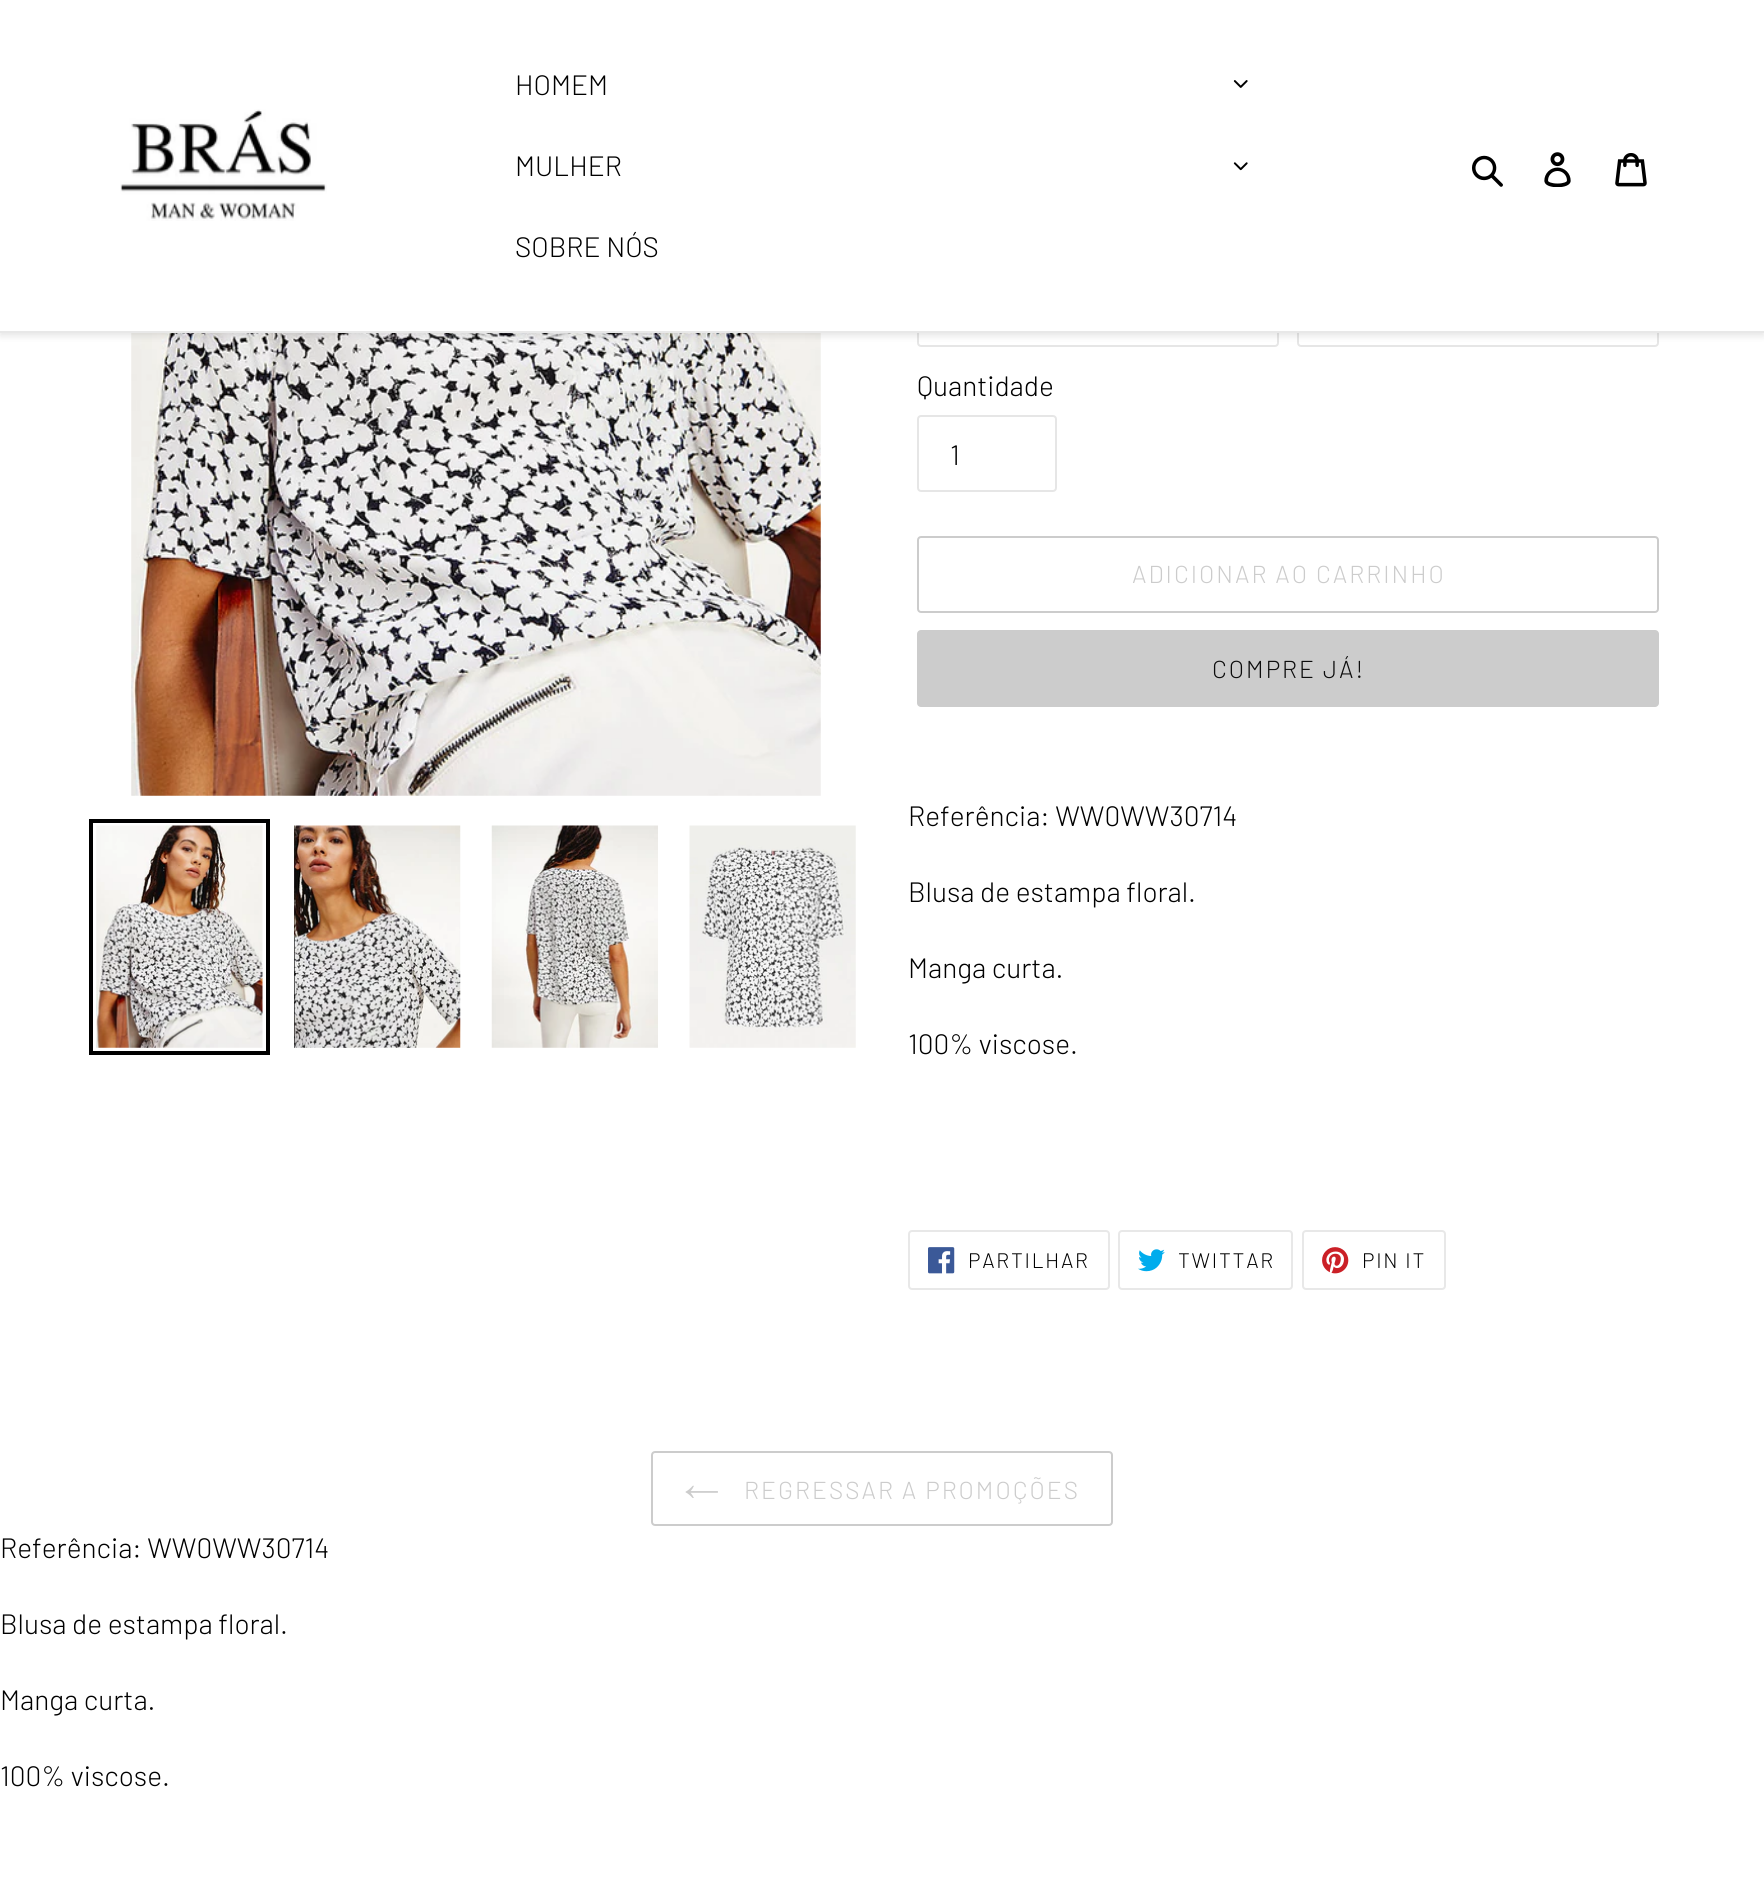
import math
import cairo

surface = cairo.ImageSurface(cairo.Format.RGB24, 1764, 1889)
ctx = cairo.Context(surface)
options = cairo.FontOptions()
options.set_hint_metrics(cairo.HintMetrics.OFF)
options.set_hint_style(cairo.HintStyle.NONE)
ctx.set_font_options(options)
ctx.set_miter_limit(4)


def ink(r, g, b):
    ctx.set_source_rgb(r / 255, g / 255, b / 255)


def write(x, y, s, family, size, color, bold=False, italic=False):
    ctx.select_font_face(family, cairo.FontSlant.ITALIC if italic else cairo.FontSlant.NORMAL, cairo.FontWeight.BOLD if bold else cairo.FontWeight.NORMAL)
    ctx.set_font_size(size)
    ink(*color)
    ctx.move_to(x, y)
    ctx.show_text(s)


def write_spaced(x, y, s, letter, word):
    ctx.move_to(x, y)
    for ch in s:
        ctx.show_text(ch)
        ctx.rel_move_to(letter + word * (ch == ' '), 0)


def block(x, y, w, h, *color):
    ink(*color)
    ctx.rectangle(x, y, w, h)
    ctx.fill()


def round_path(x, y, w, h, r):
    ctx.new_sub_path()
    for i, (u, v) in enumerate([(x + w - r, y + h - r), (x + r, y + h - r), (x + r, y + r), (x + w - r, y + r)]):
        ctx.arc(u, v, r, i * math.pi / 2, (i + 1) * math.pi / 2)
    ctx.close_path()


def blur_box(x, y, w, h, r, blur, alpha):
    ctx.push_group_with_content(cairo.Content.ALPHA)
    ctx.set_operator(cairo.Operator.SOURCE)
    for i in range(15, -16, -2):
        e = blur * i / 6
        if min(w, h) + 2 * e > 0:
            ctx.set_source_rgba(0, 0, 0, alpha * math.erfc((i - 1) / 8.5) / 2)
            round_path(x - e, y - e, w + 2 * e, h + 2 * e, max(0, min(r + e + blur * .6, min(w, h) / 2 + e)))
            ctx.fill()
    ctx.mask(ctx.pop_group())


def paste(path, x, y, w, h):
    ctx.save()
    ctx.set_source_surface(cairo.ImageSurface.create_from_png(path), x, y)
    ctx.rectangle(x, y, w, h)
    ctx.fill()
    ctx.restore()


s1 = dict(family="Barlow Light", size=28, color=(0, 0, 0))

ink(255, 255, 255)
ctx.paint()
paste("pic7.png", 131, 333, 690, 463)
round_path(918, 271, 360, 75, 3)
ink(230, 230, 230)
ctx.stroke()
round_path(1298, 271, 360, 75, 3)
ctx.stroke()
ink(0, 0, 0)
blur_box(0, 4, 1764, 332, 0, 3.5, 0.1)
block(0, 0, 1764, 331, 255, 255, 255)
block(0, 331, 1764, 2, 232, 232, 232)
paste("pic1.png", 120, 109, 207, 112)
write(515, 95, "HOMEM", **s1)
paste("pic2.png", 1233, 80, 15, 8)
write(515, 176, "MULHER", **s1)
paste("pic3.png", 1233, 162, 15, 9)
write(515, 257, "SOBRE NÓS", **s1)
paste("pic4.png", 1472, 155, 31, 32)
paste("pic5.png", 1544, 152, 27, 35)
paste("pic6.png", 1615, 153, 32, 34)
ctx.rectangle(91, 821, 177, 232)
ctx.set_line_width(4)
ctx.stroke()
paste("pic8.png", 96, 825, 167, 223)
paste("pic9.png", 294, 825, 167, 223)
paste("pic10.png", 491, 825, 167, 223)
paste("pic11.png", 689, 825, 167, 223)
write(917, 396, "Quantidade", **s1)
round_path(918, 416, 138, 75, 3)
ink(230, 230, 230)
ctx.set_line_width(2)
ctx.stroke()
write(950, 465, "1", **s1)
round_path(918, 537, 740, 75, 3)
ink(204, 204, 204)
ctx.stroke()
ctx.set_font_size(24.5)
write_spaced(1132, 583, "ADICIONAR AO CARRINHO", 2, 0)
round_path(917, 630, 742, 77, 4)
ctx.fill()
ink(12, 12, 12)
write_spaced(1212, 678, "COMPRE JÁ!", 2, 0)
write(908, 826, "Referência: WW0WW30714", **s1)
write(908, 902, "Blusa de estampa floral.", **s1)
write(908, 978, "Manga curta.", **s1)
write(908, 1054, "100% viscose.", **s1)
round_path(909, 1231, 200, 58, 3)
ink(232, 232, 232)
ctx.stroke()
paste("pic12.png", 928, 1247, 27, 27)
ctx.set_font_size(21)
ink(0, 0, 0)
write_spaced(968, 1268, "PARTILHAR", 1.75, 0)
round_path(1119, 1231, 173, 58, 3)
ink(232, 232, 232)
ctx.stroke()
paste("pic13.png", 1138, 1249, 27, 23)
ink(0, 0, 0)
write_spaced(1178, 1268, "TWITTAR", 1.75, 0)
round_path(1303, 1231, 142, 58, 3)
ink(232, 232, 232)
ctx.stroke()
paste("pic14.png", 1322, 1247, 27, 27)
ink(0, 0, 0)
write_spaced(1362, 1268, "PIN IT", 1.75, 0)
round_path(652, 1452, 460, 73, 3)
ink(204, 204, 204)
ctx.stroke()
paste("pic15.png", 685, 1485, 33, 13)
ctx.set_font_size(24.5)
write_spaced(744, 1499, "REGRESSAR A PROMOÇÕES", 2, 0)
write(0, 1558, "Referência: WW0WW30714", **s1)
write(0, 1634, "Blusa de estampa floral.", **s1)
write(0, 1710, "Manga curta.", **s1)
write(0, 1786, "100% viscose.", **s1)
surface.write_to_png("screenshot.png")
